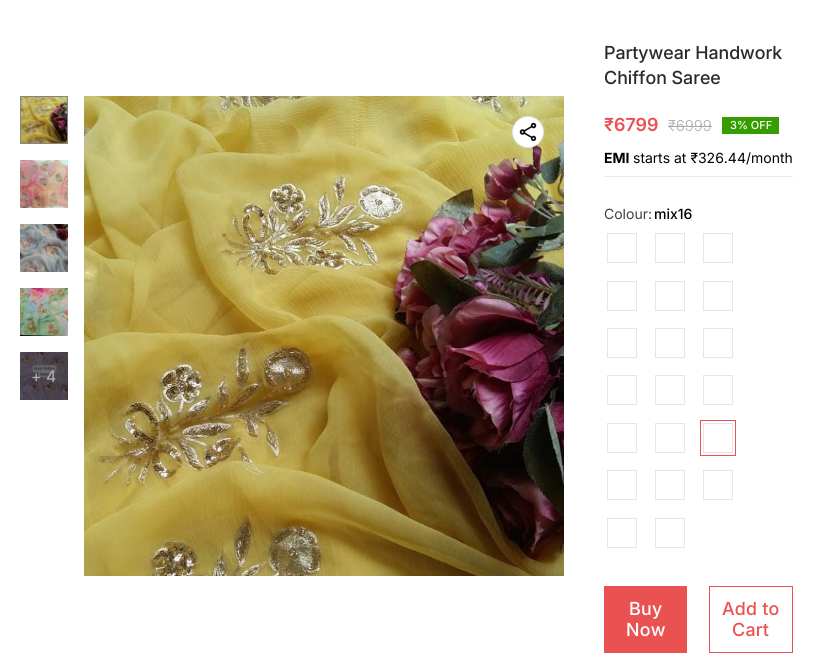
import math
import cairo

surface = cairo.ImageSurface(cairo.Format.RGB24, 833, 653)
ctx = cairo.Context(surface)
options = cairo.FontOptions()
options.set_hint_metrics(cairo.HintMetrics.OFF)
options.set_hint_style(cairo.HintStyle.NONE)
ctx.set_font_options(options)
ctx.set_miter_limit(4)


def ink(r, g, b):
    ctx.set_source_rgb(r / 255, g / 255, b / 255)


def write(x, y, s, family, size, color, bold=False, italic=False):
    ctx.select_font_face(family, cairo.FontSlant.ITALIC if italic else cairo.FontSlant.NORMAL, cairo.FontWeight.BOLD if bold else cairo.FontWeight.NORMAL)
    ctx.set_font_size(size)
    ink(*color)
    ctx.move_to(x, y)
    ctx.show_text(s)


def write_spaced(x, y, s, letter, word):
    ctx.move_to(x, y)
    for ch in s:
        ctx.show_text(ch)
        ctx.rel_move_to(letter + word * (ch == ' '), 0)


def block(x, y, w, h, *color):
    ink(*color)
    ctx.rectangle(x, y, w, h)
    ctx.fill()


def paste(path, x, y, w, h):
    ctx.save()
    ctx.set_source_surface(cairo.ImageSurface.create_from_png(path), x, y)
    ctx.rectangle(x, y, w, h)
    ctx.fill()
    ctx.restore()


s1 = dict(family="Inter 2", size=16, color=(181, 178, 183))
s2 = dict(family="Inter", size=16, color=(181, 178, 183))
s3 = dict(family="Inter Medium", size=18, color=(42, 42, 42))
s4 = dict(family="Inter SemiBold", size=18, color=(234, 81, 81))
s5 = dict(family="Inter Light", size=15, color=(171, 173, 174))
s6 = dict(family="Inter 2 Medium", size=11, color=(255, 255, 255))
s7 = dict(family="Inter", size=14, color=(0, 0, 0), bold=True)
s8 = dict(family="Inter", size=14, color=(0, 0, 0))
s9 = dict(family="Inter", size=14, color=(65, 65, 65))
s10 = dict(family="Inter 2 Medium", size=14, color=(0, 0, 0))

ink(255, 255, 255)
ctx.paint()
ctx.rectangle(20.5, 96.5, 47, 47)
ink(133, 133, 133)
ctx.set_line_width(1)
ctx.stroke()
paste("pic1.png", 21, 97, 46, 46)
paste("pic2.png", 20, 160, 48, 48)
paste("pic3.png", 20, 224, 48, 48)
paste("pic4.png", 20, 288, 48, 48)
paste("pic5.png", 20, 352, 48, 48)
write(31, 382, "+", **s1)
write(46, 382, "4", **s2)
paste("pic6.png", 84, 96, 480, 480)
ink(255, 255, 255)
ctx.arc(528, 132, 15.5, 0, 2 * math.pi)
ctx.fill_preserve()
ink(224, 224, 224)
ctx.stroke()
paste("pic7.png", 519, 122, 18, 20)
write(604, 59, "Partywear Handwork", **s3)
write(604, 84, "Chiffon Saree", **s3)
write(604, 131, "₹6799", **s4)
write(668, 131, "₹6999", **s5)
block(668, 126, 44, 1, 171, 173, 174)
block(722, 117, 57, 17, 54, 157, 0)
write(730, 129, "3% OFF", **s6)
write(604, 163, "EMI", **s7)
write(633, 163, "starts at ₹326.44/month", **s8)
block(604, 176, 189, 1, 233, 233, 233)
write(604, 219, "Colour:", **s9)
write(654, 219, "mix16", **s10)
ctx.rectangle(607.5, 233.5, 29, 29)
ink(230, 230, 230)
ctx.stroke()
ctx.rectangle(655.5, 233.5, 29, 29)
ctx.stroke()
ctx.rectangle(703.5, 233.5, 29, 29)
ctx.stroke()
ctx.rectangle(607.5, 281.5, 29, 29)
ctx.stroke()
ctx.rectangle(655.5, 281.5, 29, 29)
ctx.stroke()
ctx.rectangle(703.5, 281.5, 29, 29)
ctx.stroke()
ctx.rectangle(607.5, 328.5, 29, 29)
ctx.stroke()
ctx.rectangle(655.5, 328.5, 29, 29)
ctx.stroke()
ctx.rectangle(703.5, 328.5, 29, 29)
ctx.stroke()
ctx.rectangle(607.5, 375.5, 29, 29)
ctx.stroke()
ctx.rectangle(655.5, 375.5, 29, 29)
ctx.stroke()
ctx.rectangle(703.5, 375.5, 29, 29)
ctx.stroke()
ctx.rectangle(607.5, 423.5, 29, 29)
ctx.stroke()
ctx.rectangle(655.5, 423.5, 29, 29)
ctx.stroke()
ctx.new_path()
ctx.move_to(700.5, 420.5)
ctx.line_to(735.5, 420.5)
ctx.line_to(735.5, 455.5)
ctx.line_to(700.5, 455.5)
ctx.close_path()
ink(234, 81, 81)
ctx.stroke()
ctx.rectangle(703.5, 423.5, 29, 29)
ink(230, 230, 230)
ctx.stroke()
ctx.rectangle(607.5, 470.5, 29, 29)
ctx.stroke()
ctx.rectangle(655.5, 470.5, 29, 29)
ctx.stroke()
ctx.rectangle(703.5, 470.5, 29, 29)
ctx.stroke()
ctx.rectangle(607.5, 518.5, 29, 29)
ctx.stroke()
ctx.rectangle(655.5, 518.5, 29, 29)
ctx.stroke()
block(604, 586, 83, 67, 234, 81, 81)
ctx.select_font_face("Inter Medium")
ctx.set_font_size(18)
ink(255, 255, 255)
write_spaced(629, 615, "Buy", 0.25, 0)
write_spaced(626, 636, "Now", 0.25, 0)
ctx.rectangle(709.5, 586.5, 83, 66)
ink(234, 81, 81)
ctx.stroke()
write_spaced(722, 615, "Add to", 0.25, 0)
write_spaced(732, 636, "Cart", 0.25, 0)
surface.write_to_png("screenshot.png")
